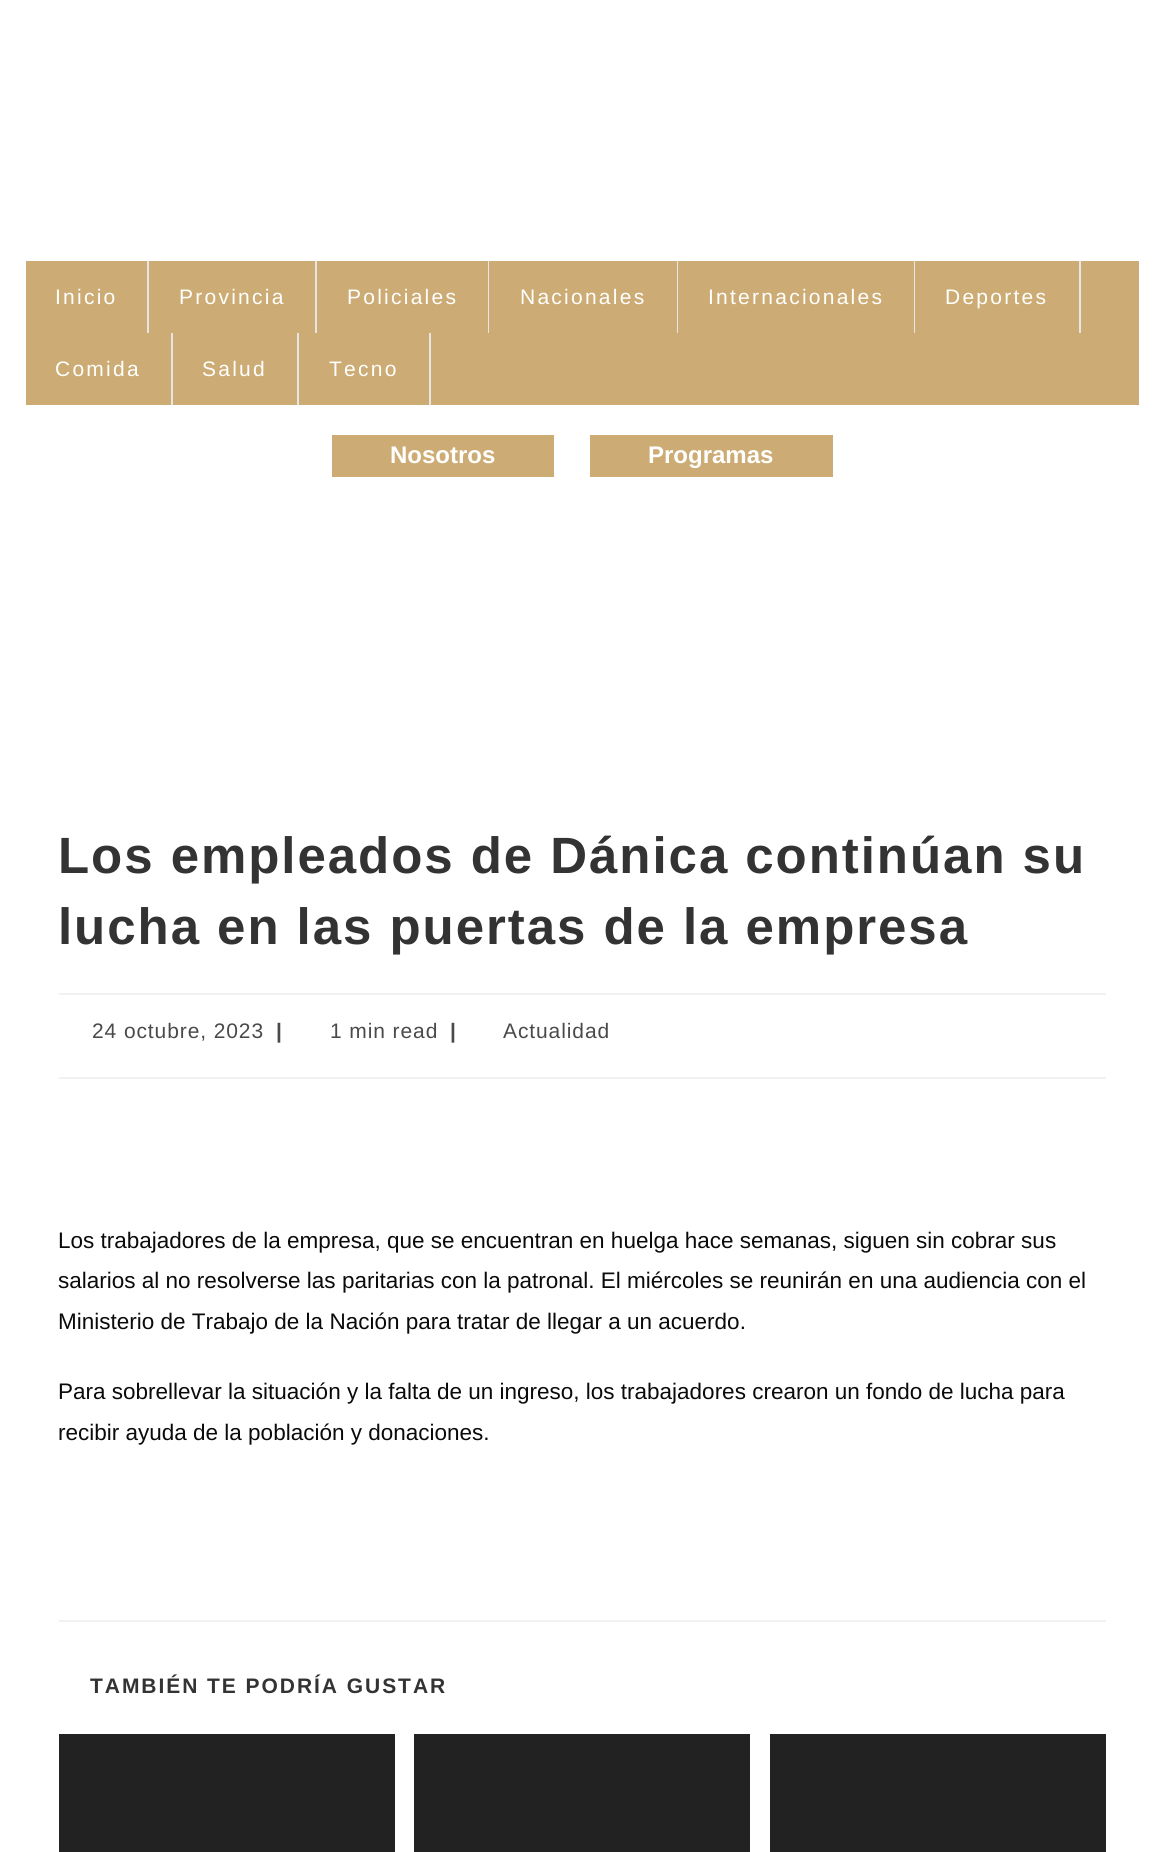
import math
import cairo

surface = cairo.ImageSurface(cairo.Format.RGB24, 1163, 1852)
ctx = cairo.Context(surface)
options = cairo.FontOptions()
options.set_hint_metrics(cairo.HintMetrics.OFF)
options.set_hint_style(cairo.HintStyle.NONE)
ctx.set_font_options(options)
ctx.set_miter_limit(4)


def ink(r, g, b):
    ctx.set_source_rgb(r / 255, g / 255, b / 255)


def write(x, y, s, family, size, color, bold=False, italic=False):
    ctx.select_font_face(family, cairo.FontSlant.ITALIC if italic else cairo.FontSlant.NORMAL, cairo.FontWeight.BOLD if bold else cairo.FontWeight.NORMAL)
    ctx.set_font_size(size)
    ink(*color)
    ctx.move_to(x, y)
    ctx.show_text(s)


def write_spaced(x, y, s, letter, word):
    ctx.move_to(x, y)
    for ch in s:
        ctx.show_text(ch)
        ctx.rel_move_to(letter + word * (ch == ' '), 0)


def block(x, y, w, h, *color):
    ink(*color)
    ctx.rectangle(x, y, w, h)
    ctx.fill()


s1 = dict(family="Liberation Sans", size=24, color=(255, 255, 255), bold=True)
s2 = dict(family="Liberation Sans", size=22.5, color=(10, 10, 10))

ink(255, 255, 255)
ctx.paint()
block(26, 261, 1113, 144, 204, 172, 116)
block(147, 261, 2, 72, 231, 228, 228)
ctx.select_font_face("Liberation Sans")
ctx.set_font_size(21)
ink(255, 255, 255)
write_spaced(55, 304, "Inicio", 2.25, 0)
block(315, 261, 2, 72, 231, 228, 228)
ink(255, 255, 255)
write_spaced(179, 304, "Provincia", 2.25, 0)
block(488, 261, 1, 72, 231, 228, 228)
ink(255, 255, 255)
write_spaced(347, 304, "Policiales", 2.25, 0)
block(677, 261, 1, 72, 231, 228, 228)
ink(255, 255, 255)
write_spaced(520, 304, "Nacionales", 2.25, 0)
block(914, 261, 1, 72, 231, 228, 228)
ink(255, 255, 255)
write_spaced(708, 304, "Internacionales", 2.25, 0)
block(1079, 261, 2, 72, 231, 228, 228)
ink(255, 255, 255)
write_spaced(945, 304, "Deportes", 2.25, 0)
block(171, 333, 2, 72, 231, 228, 228)
ink(255, 255, 255)
write_spaced(55, 376, "Comida", 2.25, 0)
block(297, 333, 2, 72, 231, 228, 228)
ink(255, 255, 255)
write_spaced(202, 376, "Salud", 2.25, 0)
block(429, 333, 2, 72, 231, 228, 228)
ink(255, 255, 255)
write_spaced(329, 376, "Tecno", 2.25, 0)
block(332, 435, 222, 42, 204, 172, 116)
write(390, 463, "Nosotros", **s1)
block(590, 435, 243, 42, 204, 172, 116)
write(648, 463, "Programas", **s1)
block(59, 993, 1047, 2, 241, 241, 241)
ctx.set_font_size(51)
ink(51, 51, 51)
write_spaced(58, 873, "Los empleados de Dánica continúan su", 1.95, 0)
write_spaced(58, 944, "lucha en las puertas de la empresa", 1.95, 0)
block(59, 1077, 1047, 2, 241, 241, 241)
ctx.select_font_face("Liberation Sans")
ctx.set_font_size(21)
ink(74, 74, 74)
write_spaced(92, 1038, "24 octubre, 2023", 0.9, 0)
ctx.select_font_face("Liberation Sans", cairo.FontSlant.NORMAL, cairo.FontWeight.BOLD)
write_spaced(276, 1038, "|", 0.9, 0)
ctx.select_font_face("Liberation Sans")
write_spaced(330, 1038, "1 min read", 0.9, 0)
ctx.select_font_face("Liberation Sans", cairo.FontSlant.NORMAL, cairo.FontWeight.BOLD)
write_spaced(450, 1038, "|", 0.9, 0)
ctx.select_font_face("Liberation Sans")
write_spaced(503, 1038, "Actualidad", 0.9, 0)
write(58, 1248, "Los trabajadores de la empresa, que se encuentran en huelga hace semanas, siguen sin cobrar sus", **s2)
write(58, 1288, "salarios al no resolverse las paritarias con la patronal. El miércoles se reunirán en una audiencia con el", **s2)
write(58, 1329, "Ministerio de Trabajo de la Nación para tratar de llegar a un acuerdo.", **s2)
write(58, 1399, "Para sobrellevar la situación y la falta de un ingreso, los trabajadores crearon un fondo de lucha para", **s2)
write(58, 1440, "recibir ayuda de la población y donaciones.", **s2)
block(59, 1620, 1047, 2, 241, 241, 241)
ctx.select_font_face("Liberation Sans", cairo.FontSlant.NORMAL, cairo.FontWeight.BOLD)
ctx.set_font_size(21)
ink(51, 51, 51)
write_spaced(90, 1693, "TAMBIÉN TE PODRÍA GUSTAR", 1.95, 0)
block(59, 1734, 336, 118, 34, 34, 34)
block(414, 1734, 336, 118, 34, 34, 34)
block(770, 1734, 336, 118, 34, 34, 34)
surface.write_to_png("screenshot.png")
